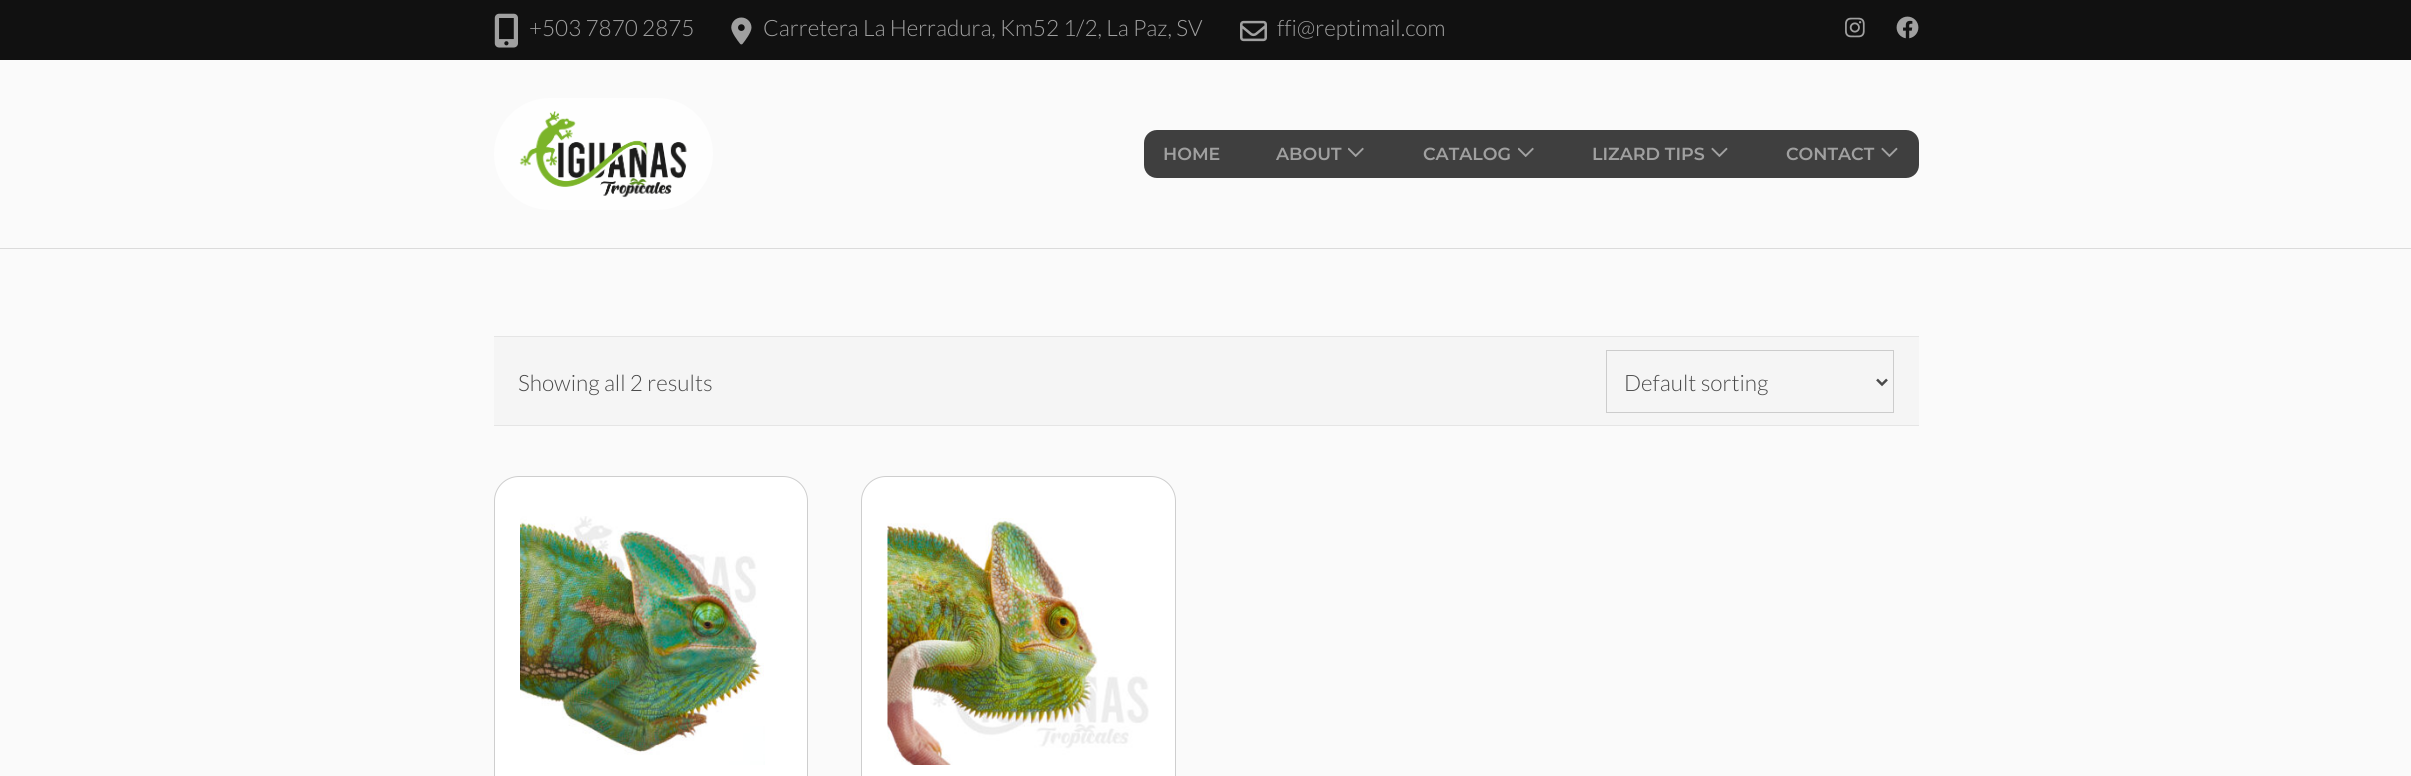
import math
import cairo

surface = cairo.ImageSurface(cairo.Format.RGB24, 2411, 776)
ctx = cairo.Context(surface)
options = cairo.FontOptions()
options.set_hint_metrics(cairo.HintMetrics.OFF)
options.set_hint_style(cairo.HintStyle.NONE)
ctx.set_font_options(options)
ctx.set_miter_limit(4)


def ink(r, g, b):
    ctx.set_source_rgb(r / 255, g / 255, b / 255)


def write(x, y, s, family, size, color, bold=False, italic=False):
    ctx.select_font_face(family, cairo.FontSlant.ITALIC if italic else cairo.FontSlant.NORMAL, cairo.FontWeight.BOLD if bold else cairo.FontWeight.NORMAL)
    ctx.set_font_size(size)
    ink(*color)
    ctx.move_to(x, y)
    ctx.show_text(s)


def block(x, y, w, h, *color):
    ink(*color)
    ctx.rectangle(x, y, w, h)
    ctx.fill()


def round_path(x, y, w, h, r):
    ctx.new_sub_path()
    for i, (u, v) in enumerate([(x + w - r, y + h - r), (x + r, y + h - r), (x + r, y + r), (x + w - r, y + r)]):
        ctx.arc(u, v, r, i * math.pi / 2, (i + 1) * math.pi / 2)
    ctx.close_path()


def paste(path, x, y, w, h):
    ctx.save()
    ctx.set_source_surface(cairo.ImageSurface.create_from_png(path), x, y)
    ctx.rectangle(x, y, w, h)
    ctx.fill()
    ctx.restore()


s1 = dict(family="Lato Light", size=22.5, color=(160, 160, 160))
s2 = dict(family="Montserrat SemiBold", size=17.5, color=(160, 160, 160))
s3 = dict(family="Lato Light", size=22.5, color=(74, 74, 74))

ink(250, 250, 250)
ctx.paint()
block(0, 0, 2411, 60, 17, 17, 17)
paste("pic1.png", 494, 13, 24, 35)
write(529, 36, "+503 7870 2875", **s1)
paste("pic2.png", 731, 17, 21, 28)
write(763, 36, "Carretera La Herradura, Km52 1/2, La Paz, SV", **s1)
paste("pic3.png", 1240, 20, 27, 22)
write(1277, 36, "ffi@reptimail.com", **s1)
paste("pic4.png", 1845, 17, 20, 21)
paste("pic5.png", 1896, 16, 23, 23)
block(0, 248, 2411, 1, 219, 219, 219)
ink(254, 254, 254)
round_path(494, 98, 219, 112, 56)
ctx.fill()
paste("pic6.png", 519, 111, 168, 87)
ink(63, 63, 63)
round_path(1144, 130, 775, 48, 13)
ctx.fill()
write(1163, 160, "HOME", **s2)
write(1276, 160, "ABOUT", **s2)
paste("pic7.png", 1348, 147, 16, 10)
write(1423, 160, "CATALOG", **s2)
paste("pic7.png", 1518, 147, 16, 10)
write(1592, 160, "LIZARD TIPS", **s2)
paste("pic8.png", 1711, 147, 17, 10)
write(1786, 160, "CONTACT", **s2)
paste("pic8.png", 1881, 147, 17, 10)
block(494, 337, 1425, 88, 245, 245, 245)
block(494, 336, 1425, 1, 229, 229, 229)
block(494, 425, 1425, 1, 229, 229, 229)
write(518, 391, "Showing all 2 results", **s3)
ctx.rectangle(1606.5, 350.5, 287, 62)
ink(204, 204, 204)
ctx.set_line_width(1)
ctx.stroke()
ctx.new_path()
ctx.move_to(1877, 379.5)
ctx.line_to(1882, 384.5)
ctx.line_to(1887, 379.5)
ink(74, 74, 74)
ctx.set_line_width(2.5)
ctx.stroke()
write(1624, 391, "Default sorting", **s3)
ink(255, 255, 255)
round_path(494.5, 476.5, 313, 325, 24.5)
ctx.fill_preserve()
ink(206, 206, 206)
ctx.set_line_width(1)
ctx.stroke()
paste("pic9.png", 520, 516, 245, 249)
ink(255, 255, 255)
round_path(861.5, 476.5, 314, 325, 24.5)
ctx.fill_preserve()
ink(206, 206, 206)
ctx.stroke()
paste("pic10.png", 887, 518, 262, 247)
surface.write_to_png("screenshot.png")
